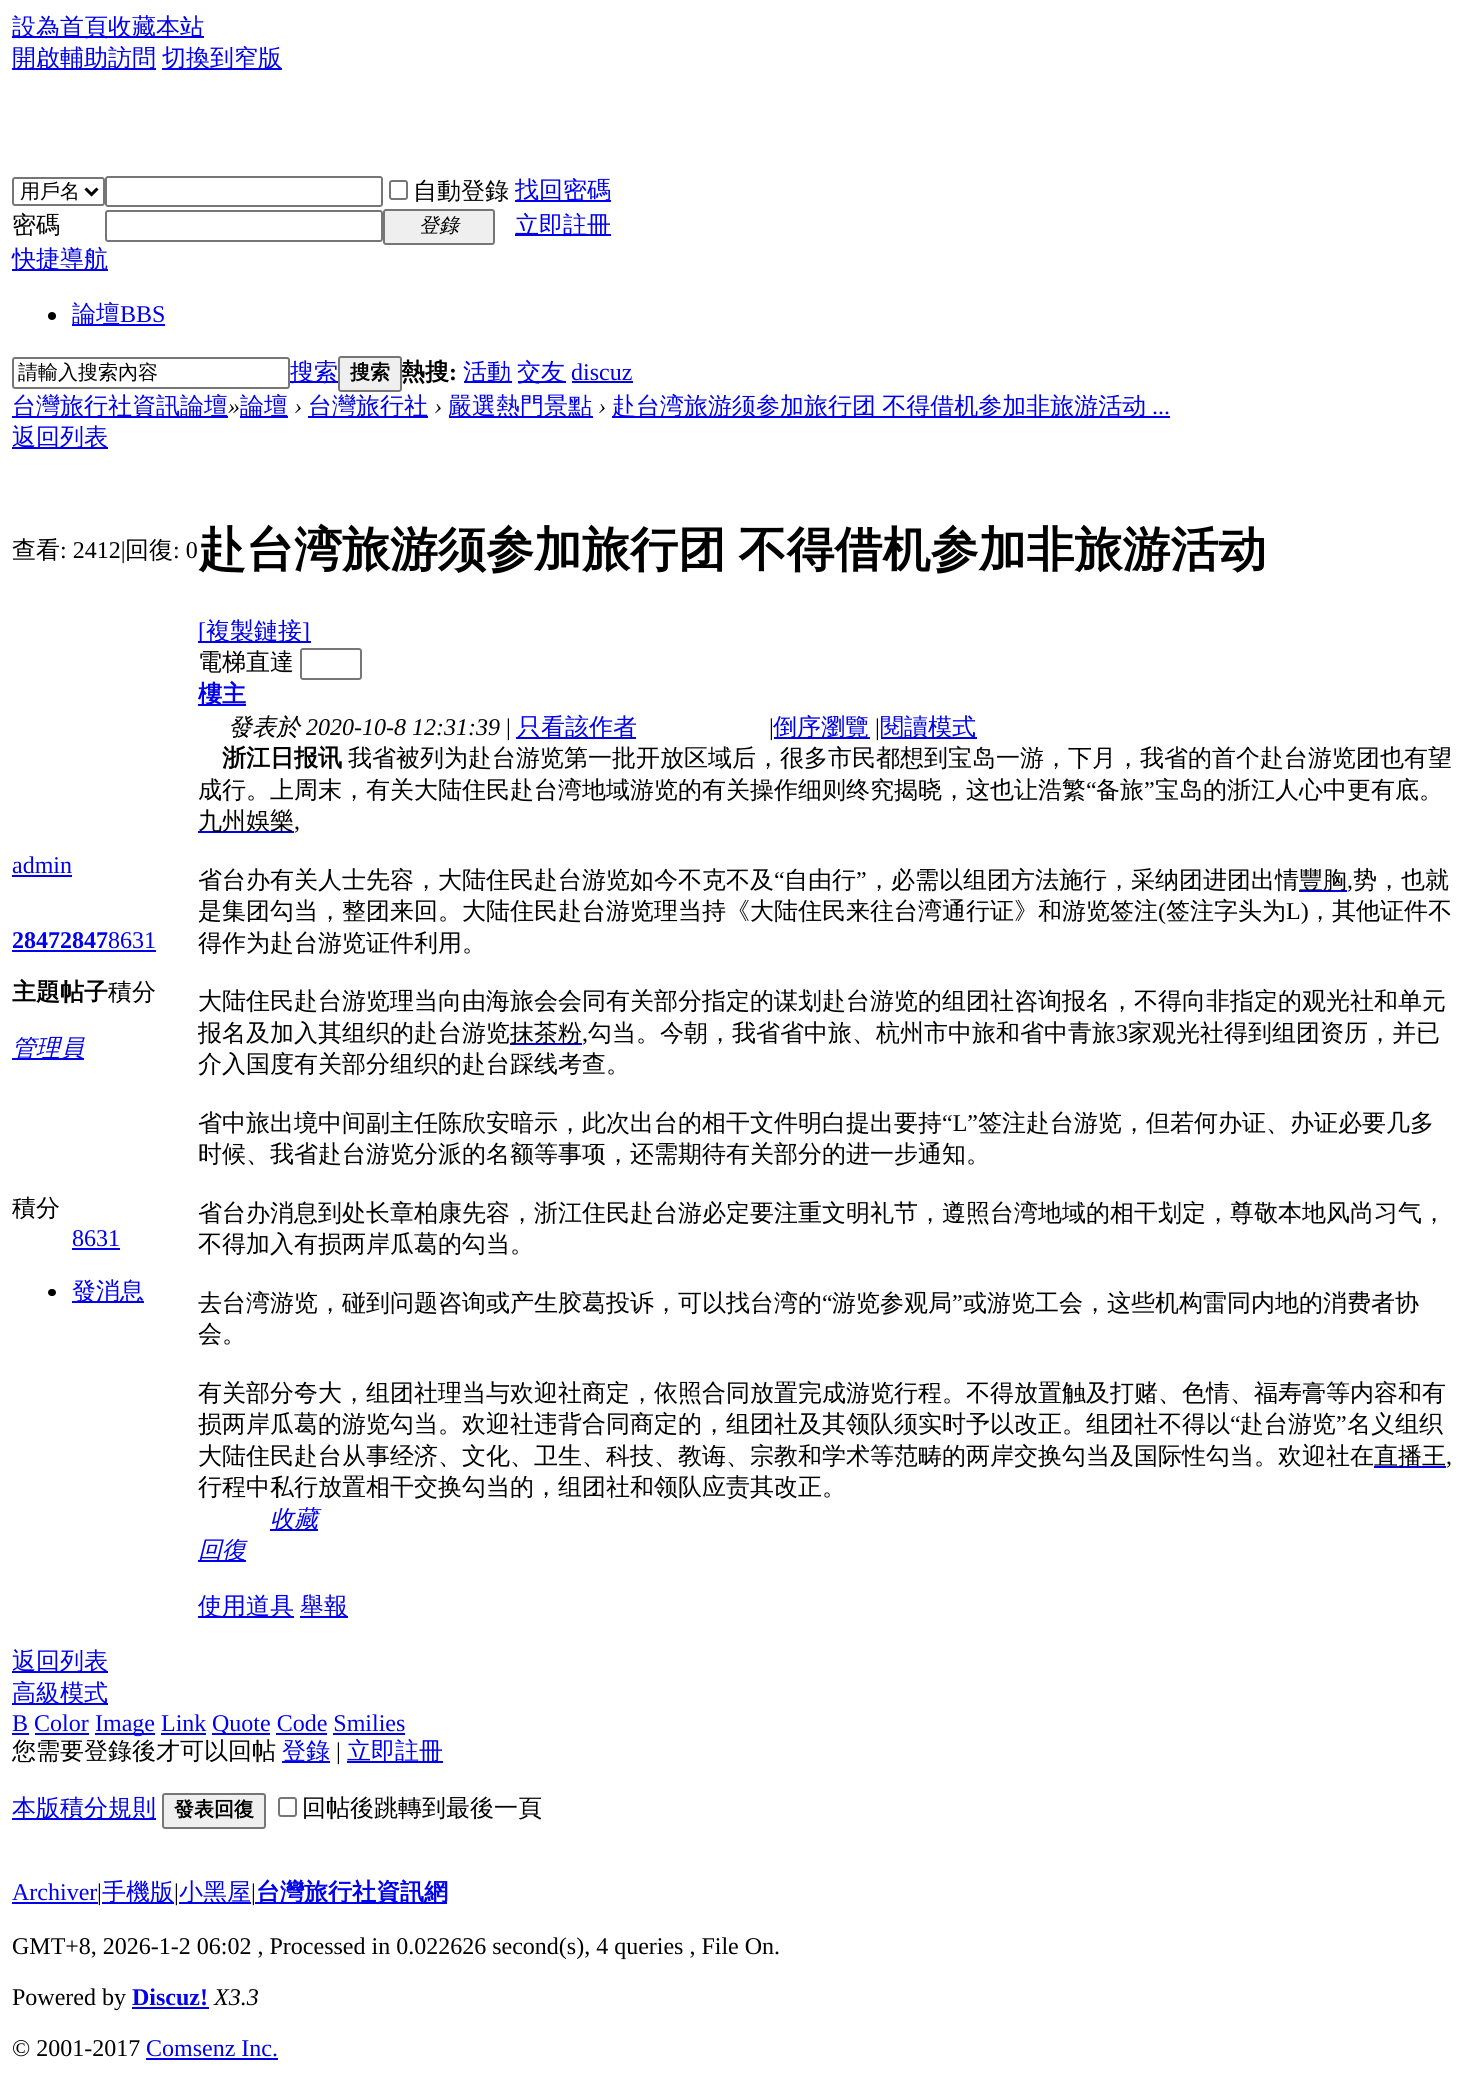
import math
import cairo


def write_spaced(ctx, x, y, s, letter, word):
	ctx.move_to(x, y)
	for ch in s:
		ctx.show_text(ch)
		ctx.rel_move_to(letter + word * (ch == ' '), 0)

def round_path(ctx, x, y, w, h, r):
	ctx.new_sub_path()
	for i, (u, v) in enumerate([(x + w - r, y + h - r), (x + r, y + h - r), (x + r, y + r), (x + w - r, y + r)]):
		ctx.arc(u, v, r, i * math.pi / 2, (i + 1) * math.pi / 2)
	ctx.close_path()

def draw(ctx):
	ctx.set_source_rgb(1, 1, 1)
	ctx.paint()
	ctx.set_source_rgb(0, 0, 0.933)
	ctx.rectangle(12, 36, 192, 2)
	ctx.fill()
	ctx.select_font_face('WenQuanYi Zen Hei Medium')
	ctx.set_font_size(24)
	ctx.move_to(12, 35)
	ctx.show_text('設為首頁收藏本站')
	ctx.rectangle(12, 68, 144, 2)
	ctx.fill()
	ctx.move_to(12, 66)
	ctx.show_text('開啟輔助訪問')
	ctx.rectangle(162, 68, 120, 2)
	ctx.fill()
	ctx.move_to(162, 66)
	ctx.show_text('切換到窄版')
	round_path(ctx, 13, 178, 91, 27, 2)
	ctx.set_source_rgb(0.463, 0.463, 0.463)
	ctx.stroke()
	ctx.new_path()
	ctx.move_to(85.5, 188.5)
	ctx.line_to(91.5, 194.5)
	ctx.line_to(97.5, 188.5)
	ctx.set_source_rgb(0, 0, 0)
	ctx.set_line_width(3)
	ctx.stroke()
	ctx.set_font_size(20)
	ctx.move_to(20, 198)
	ctx.show_text('用戶名')
	round_path(ctx, 106, 177, 276, 29, 2)
	ctx.set_source_rgb(0.463, 0.463, 0.463)
	ctx.set_line_width(2)
	ctx.stroke()
	round_path(ctx, 390, 181, 17, 18, 2)
	ctx.stroke()
	ctx.set_font_size(24)
	ctx.set_source_rgb(0, 0, 0)
	ctx.move_to(413, 199)
	ctx.show_text('自動登錄')
	ctx.set_source_rgb(0, 0, 0.933)
	ctx.rectangle(515, 200, 96, 2)
	ctx.fill()
	ctx.move_to(515, 198)
	ctx.show_text('找回密碼')
	ctx.set_source_rgb(0, 0, 0)
	ctx.move_to(12, 233)
	ctx.show_text('密碼')
	round_path(ctx, 106, 211, 276, 30, 2)
	ctx.set_source_rgb(0.463, 0.463, 0.463)
	ctx.stroke()
	ctx.set_source_rgb(0.937, 0.937, 0.937)
	round_path(ctx, 384, 210, 110, 34, 2)
	ctx.fill_preserve()
	ctx.set_source_rgb(0.463, 0.463, 0.463)
	ctx.stroke()
	ctx.select_font_face('WenQuanYi Zen Hei Medium', cairo.FONT_SLANT_ITALIC)
	ctx.set_font_size(20)
	ctx.set_source_rgb(0, 0, 0)
	ctx.move_to(419, 232)
	ctx.show_text('登錄')
	ctx.set_source_rgb(0, 0, 0.933)
	ctx.rectangle(515, 234, 96, 2)
	ctx.fill()
	ctx.select_font_face('WenQuanYi Zen Hei Medium')
	ctx.set_font_size(24)
	ctx.move_to(515, 233)
	ctx.show_text('立即註冊')
	ctx.rectangle(12, 269, 96, 2)
	ctx.fill()
	ctx.move_to(12, 267)
	ctx.show_text('快捷導航')
	ctx.set_source_rgb(0, 0, 0)
	ctx.new_path()
	ctx.arc(52, 316, 4, 0, 2 * math.pi)
	ctx.fill()
	ctx.set_source_rgb(0, 0, 0.933)
	ctx.rectangle(72, 324, 93, 2)
	ctx.fill()
	ctx.move_to(72, 322)
	ctx.show_text('論壇')
	ctx.select_font_face('Liberation Serif')
	ctx.move_to(120, 322)
	ctx.show_text('BBS')
	round_path(ctx, 13, 358, 276, 30, 2)
	ctx.set_source_rgb(0.463, 0.463, 0.463)
	ctx.stroke()
	ctx.select_font_face('WenQuanYi Zen Hei Medium')
	ctx.set_font_size(20)
	ctx.set_source_rgb(0, 0, 0)
	ctx.move_to(18, 379)
	ctx.show_text('請輸入搜索內容')
	ctx.set_source_rgb(0, 0, 0.933)
	ctx.rectangle(290, 381, 48, 2)
	ctx.fill()
	ctx.set_font_size(24)
	ctx.move_to(290, 380)
	ctx.show_text('搜索')
	ctx.set_source_rgb(0.937, 0.937, 0.937)
	round_path(ctx, 339, 357, 62, 34, 2)
	ctx.fill_preserve()
	ctx.set_source_rgb(0.463, 0.463, 0.463)
	ctx.stroke()
	ctx.select_font_face('WenQuanYi Zen Hei', cairo.FONT_SLANT_NORMAL, cairo.FONT_WEIGHT_BOLD)
	ctx.set_font_size(20)
	ctx.set_source_rgb(0, 0, 0)
	ctx.move_to(350, 379)
	ctx.show_text('搜索')
	ctx.set_font_size(24)
	ctx.move_to(401, 380)
	ctx.show_text('熱搜')
	ctx.select_font_face('Liberation Serif', cairo.FONT_SLANT_NORMAL, cairo.FONT_WEIGHT_BOLD)
	ctx.move_to(449, 380)
	ctx.show_text(':')
	ctx.set_source_rgb(0, 0, 0.933)
	ctx.rectangle(464, 381, 48, 2)
	ctx.fill()
	ctx.select_font_face('WenQuanYi Zen Hei Medium')
	ctx.move_to(463, 380)
	ctx.show_text('活動')
	ctx.rectangle(518, 381, 48, 2)
	ctx.fill()
	ctx.move_to(517, 380)
	ctx.show_text('交友')
	ctx.select_font_face('Liberation Serif')
	ctx.move_to(571, 380)
	ctx.show_text('discuz')
	ctx.rectangle(572, 381, 61, 2)
	ctx.fill()
	ctx.rectangle(12, 416, 216, 2)
	ctx.fill()
	ctx.select_font_face('WenQuanYi Zen Hei Medium')
	ctx.move_to(12, 414)
	ctx.show_text('台灣旅行社資訊論壇')
	ctx.select_font_face('Liberation Serif', cairo.FONT_SLANT_ITALIC)
	ctx.set_source_rgb(0, 0, 0)
	ctx.move_to(228, 414)
	ctx.show_text('»')
	ctx.set_source_rgb(0, 0, 0.933)
	ctx.rectangle(240, 416, 48, 2)
	ctx.fill()
	ctx.select_font_face('WenQuanYi Zen Hei Medium')
	ctx.move_to(240, 414)
	ctx.show_text('論壇')
	ctx.select_font_face('Liberation Serif', cairo.FONT_SLANT_ITALIC)
	ctx.set_source_rgb(0, 0, 0)
	ctx.move_to(294, 414)
	ctx.show_text('›')
	ctx.set_source_rgb(0, 0, 0.933)
	ctx.rectangle(308, 416, 120, 2)
	ctx.fill()
	ctx.select_font_face('WenQuanYi Zen Hei Medium')
	ctx.move_to(308, 414)
	ctx.show_text('台灣旅行社')
	ctx.select_font_face('Liberation Serif', cairo.FONT_SLANT_ITALIC)
	ctx.set_source_rgb(0, 0, 0)
	ctx.move_to(434, 414)
	ctx.show_text('›')
	ctx.set_source_rgb(0, 0, 0.933)
	ctx.rectangle(449, 416, 144, 2)
	ctx.fill()
	ctx.select_font_face('WenQuanYi Zen Hei Medium')
	ctx.move_to(448, 414)
	ctx.show_text('嚴選熱門景點')
	ctx.select_font_face('Liberation Serif', cairo.FONT_SLANT_ITALIC)
	ctx.set_source_rgb(0, 0, 0)
	ctx.move_to(598, 414)
	ctx.show_text('›')
	ctx.set_source_rgb(0, 0, 0.933)
	ctx.rectangle(612, 416, 558, 2)
	ctx.fill()
	ctx.select_font_face('WenQuanYi Zen Hei Medium')
	write_spaced(ctx, 612, 414, '赴台湾旅游须参加旅行团 不得借机参加非旅游活动', 0, -1)
	ctx.select_font_face('Liberation Serif')
	ctx.move_to(1152, 414)
	ctx.show_text('...')
	ctx.rectangle(12, 447, 96, 2)
	ctx.fill()
	ctx.select_font_face('WenQuanYi Zen Hei Medium')
	ctx.move_to(12, 445)
	ctx.show_text('返回列表')
	ctx.set_source_rgb(0, 0, 0)
	ctx.move_to(12, 558)
	ctx.show_text('查看')
	ctx.select_font_face('Liberation Serif')
	ctx.move_to(60, 558)
	ctx.show_text(': 2412|')
	ctx.select_font_face('WenQuanYi Zen Hei Medium')
	ctx.move_to(125, 558)
	ctx.show_text('回復')
	ctx.select_font_face('Liberation Serif')
	ctx.move_to(173, 558)
	ctx.show_text(': 0')
	ctx.select_font_face('WenQuanYi Zen Hei', cairo.FONT_SLANT_NORMAL, cairo.FONT_WEIGHT_BOLD)
	ctx.set_font_size(48)
	write_spaced(ctx, 198, 566, '赴台湾旅游须参加旅行团 不得借机参加非旅游活动', 0, -2)
	ctx.set_source_rgb(0, 0, 0.933)
	ctx.rectangle(198, 641, 113, 2)
	ctx.fill()
	ctx.select_font_face('Liberation Serif')
	ctx.set_font_size(24)
	ctx.move_to(198, 639)
	ctx.show_text('[')
	ctx.select_font_face('WenQuanYi Zen Hei Medium')
	ctx.move_to(206, 639)
	ctx.show_text('複製鏈接')
	ctx.select_font_face('Liberation Serif')
	ctx.move_to(302, 639)
	ctx.show_text(']')
	ctx.move_to(12, 873)
	ctx.show_text('admin')
	ctx.rectangle(12, 875, 60, 2)
	ctx.fill()
	ctx.select_font_face('Liberation Serif', cairo.FONT_SLANT_NORMAL, cairo.FONT_WEIGHT_BOLD)
	ctx.move_to(12, 948)
	ctx.show_text('28472847')
	ctx.rectangle(12, 950, 144, 2)
	ctx.fill()
	ctx.select_font_face('WenQuanYi Zen Hei', cairo.FONT_SLANT_NORMAL, cairo.FONT_WEIGHT_BOLD)
	ctx.set_source_rgb(0, 0, 0)
	ctx.move_to(12, 1000)
	ctx.show_text('主題帖子')
	ctx.select_font_face('Liberation Serif')
	ctx.set_source_rgb(0, 0, 0.933)
	ctx.move_to(108, 948)
	ctx.show_text('8631')
	ctx.select_font_face('WenQuanYi Zen Hei Medium')
	ctx.set_source_rgb(0, 0, 0)
	ctx.move_to(108, 1000)
	ctx.show_text('積分')
	ctx.set_source_rgb(0, 0, 0.933)
	ctx.rectangle(12, 1058, 72, 2)
	ctx.fill()
	ctx.select_font_face('WenQuanYi Zen Hei Medium', cairo.FONT_SLANT_ITALIC)
	ctx.move_to(12, 1056)
	ctx.show_text('管理員')
	ctx.select_font_face('WenQuanYi Zen Hei Medium')
	ctx.set_source_rgb(0, 0, 0)
	ctx.move_to(12, 1216)
	ctx.show_text('積分')
	ctx.select_font_face('Liberation Serif')
	ctx.set_source_rgb(0, 0, 0.933)
	ctx.move_to(72, 1246)
	ctx.show_text('8631')
	ctx.rectangle(72, 1248, 48, 2)
	ctx.fill()
	ctx.set_source_rgb(0, 0, 0)
	round_path(ctx, 48, 1289, 8, 7, 3.5)
	ctx.fill()
	ctx.set_source_rgb(0, 0, 0.933)
	ctx.rectangle(72, 1301, 72, 2)
	ctx.fill()
	ctx.select_font_face('WenQuanYi Zen Hei Medium')
	ctx.move_to(72, 1299)
	ctx.show_text('發消息')
	ctx.set_source_rgb(0, 0, 0)
	ctx.move_to(198, 670)
	ctx.show_text('電梯直達')
	round_path(ctx, 301, 649, 60, 30, 2)
	ctx.set_source_rgb(0.463, 0.463, 0.463)
	ctx.stroke()
	ctx.set_source_rgb(0, 0, 0.933)
	ctx.rectangle(198, 704, 48, 2)
	ctx.fill()
	ctx.select_font_face('WenQuanYi Zen Hei', cairo.FONT_SLANT_NORMAL, cairo.FONT_WEIGHT_BOLD)
	ctx.move_to(198, 702)
	ctx.show_text('樓主')
	ctx.select_font_face('WenQuanYi Zen Hei Medium', cairo.FONT_SLANT_ITALIC)
	ctx.set_source_rgb(0, 0, 0)
	ctx.move_to(228, 735)
	ctx.show_text('發表於')
	ctx.select_font_face('Liberation Serif', cairo.FONT_SLANT_ITALIC)
	ctx.move_to(306, 735)
	ctx.show_text('2020-10-8 12:31:39')
	ctx.select_font_face('Liberation Serif')
	ctx.move_to(506, 735)
	ctx.show_text('|')
	ctx.set_source_rgb(0, 0, 0.933)
	ctx.rectangle(516, 737, 120, 2)
	ctx.fill()
	ctx.select_font_face('WenQuanYi Zen Hei Medium')
	ctx.move_to(517, 735)
	ctx.show_text('只看該作者')
	ctx.select_font_face('Liberation Serif')
	ctx.set_source_rgb(0, 0, 0)
	ctx.move_to(769, 735)
	ctx.show_text('|')
	ctx.set_source_rgb(0, 0, 0.933)
	ctx.rectangle(774, 737, 96, 2)
	ctx.fill()
	ctx.select_font_face('WenQuanYi Zen Hei Medium')
	ctx.move_to(773, 735)
	ctx.show_text('倒序瀏覽')
	ctx.select_font_face('Liberation Serif')
	ctx.set_source_rgb(0, 0, 0)
	ctx.move_to(875, 735)
	ctx.show_text('|')
	ctx.set_source_rgb(0, 0, 0.933)
	ctx.rectangle(881, 737, 96, 2)
	ctx.fill()
	ctx.select_font_face('WenQuanYi Zen Hei Medium')
	ctx.move_to(880, 735)
	ctx.show_text('閱讀模式')
	ctx.select_font_face('WenQuanYi Zen Hei', cairo.FONT_SLANT_NORMAL, cairo.FONT_WEIGHT_BOLD)
	ctx.set_source_rgb(0, 0, 0)
	ctx.move_to(222, 766)
	ctx.show_text('浙江日报讯')
	ctx.select_font_face('WenQuanYi Zen Hei Medium')
	ctx.move_to(348, 766)
	ctx.show_text('我省被列为赴台游览第一批开放区域后，很多市民都想到宝岛一游，下月，我省的首个赴台游览团也有望')
	ctx.move_to(198, 798)
	ctx.show_text('成行。上周末，有关大陆住民赴台湾地域游览的有关操作细则终究揭晓，这也让浩繁')
	ctx.select_font_face('Liberation Serif')
	ctx.move_to(1086, 798)
	ctx.show_text('“')
	ctx.select_font_face('WenQuanYi Zen Hei Medium')
	ctx.move_to(1096, 798)
	ctx.show_text('备旅')
	ctx.select_font_face('Liberation Serif')
	ctx.move_to(1144, 798)
	ctx.show_text('”')
	ctx.select_font_face('WenQuanYi Zen Hei Medium')
	ctx.move_to(1155, 798)
	ctx.show_text('宝岛的浙江人心中更有底。')
	ctx.set_source_rgb(0, 0, 0.933)
	ctx.rectangle(198, 831, 96, 2)
	ctx.fill()
	ctx.set_source_rgb(0, 0, 0)
	ctx.move_to(198, 829)
	ctx.show_text('九州娛樂')
	ctx.select_font_face('Liberation Serif')
	ctx.move_to(294, 829)
	ctx.show_text(',')
	ctx.select_font_face('WenQuanYi Zen Hei Medium')
	ctx.move_to(198, 888)
	ctx.show_text('省台办有关人士先容，大陆住民赴台游览如今不克不及')
	ctx.select_font_face('Liberation Serif')
	ctx.move_to(774, 888)
	ctx.show_text('“')
	ctx.select_font_face('WenQuanYi Zen Hei Medium')
	ctx.move_to(784, 888)
	ctx.show_text('自由行')
	ctx.select_font_face('Liberation Serif')
	ctx.move_to(856, 888)
	ctx.show_text('”')
	ctx.select_font_face('WenQuanYi Zen Hei Medium')
	ctx.move_to(867, 888)
	ctx.show_text('，必需以组团方法施行，采纳团进团出情')
	ctx.set_source_rgb(0, 0, 0.933)
	ctx.rectangle(1299, 890, 48, 2)
	ctx.fill()
	ctx.set_source_rgb(0, 0, 0)
	ctx.move_to(1299, 888)
	ctx.show_text('豐胸')
	ctx.move_to(1353, 888)
	ctx.show_text('势，也就')
	ctx.select_font_face('Liberation Serif')
	ctx.move_to(1347, 888)
	ctx.show_text(',')
	ctx.select_font_face('WenQuanYi Zen Hei Medium')
	ctx.move_to(198, 919)
	ctx.show_text('是集团勾当，整团来回。大陆住民赴台游览理当持《大陆住民来往台湾通行证》和游览签注')
	ctx.select_font_face('Liberation Serif')
	ctx.move_to(1158, 919)
	ctx.show_text('(')
	ctx.select_font_face('WenQuanYi Zen Hei Medium')
	ctx.move_to(1166, 919)
	ctx.show_text('签注字头为')
	ctx.select_font_face('Liberation Serif')
	ctx.move_to(1286, 919)
	ctx.show_text('L)')
	ctx.select_font_face('WenQuanYi Zen Hei Medium')
	for x, y, s in [
		(1308, 919, '，其他证件不'),
		(198, 951, '得作为赴台游览证件利用。'),
		(198, 1009, '大陆住民赴台游览理当向由海旅会会同有关部分指定的谋划赴台游览的组团社咨询报名，不得向非指定的观光社和单元'),
		(198, 1041, '报名及加入其组织的赴台游览'),
	]:
		ctx.move_to(x, y)
		ctx.show_text(s)
	ctx.set_source_rgb(0, 0, 0.933)
	ctx.rectangle(510, 1043, 72, 2)
	ctx.fill()
	ctx.set_source_rgb(0, 0, 0)
	ctx.move_to(510, 1041)
	ctx.show_text('抹茶粉')
	ctx.select_font_face('Liberation Serif')
	ctx.move_to(582, 1041)
	ctx.show_text(',')
	ctx.select_font_face('WenQuanYi Zen Hei Medium')
	ctx.move_to(588, 1041)
	ctx.show_text('勾当。今朝，我省省中旅、杭州市中旅和省中青旅')
	ctx.select_font_face('Liberation Serif')
	ctx.move_to(1116, 1041)
	ctx.show_text('3')
	ctx.select_font_face('WenQuanYi Zen Hei Medium')
	for x, y, s in [
		(1128, 1041, '家观光社得到组团资历，并已'),
		(198, 1072, '介入国度有关部分组织的赴台踩线考查。'),
		(198, 1131, '省中旅出境中间副主任陈欣安暗示，此次出台的相干文件明白提出要持'),
	]:
		ctx.move_to(x, y)
		ctx.show_text(s)
	ctx.select_font_face('Liberation Serif')
	ctx.move_to(942, 1131)
	ctx.show_text('“L”')
	ctx.select_font_face('WenQuanYi Zen Hei Medium')
	for x, y, s in [
		(978, 1131, '签注赴台游览，但若何办证、办证必要几多'),
		(198, 1162, '时候、我省赴台游览分派的名额等事项，还需期待有关部分的进一步通知。'),
		(198, 1221, '省台办消息到处长章柏康先容，浙江住民赴台游必定要注重文明礼节，遵照台湾地域的相干划定，尊敬本地风尚习气，'),
		(198, 1252, '不得加入有损两岸瓜葛的勾当。'),
		(198, 1311, '去台湾游览，碰到问题咨询或产生胶葛投诉，可以找台湾的'),
	]:
		ctx.move_to(x, y)
		ctx.show_text(s)
	ctx.select_font_face('Liberation Serif')
	ctx.move_to(822, 1311)
	ctx.show_text('“')
	ctx.select_font_face('WenQuanYi Zen Hei Medium')
	ctx.move_to(832, 1311)
	ctx.show_text('游览参观局')
	ctx.select_font_face('Liberation Serif')
	ctx.move_to(952, 1311)
	ctx.show_text('”')
	ctx.select_font_face('WenQuanYi Zen Hei Medium')
	for x, y, s in [
		(963, 1311, '或游览工会，这些机构雷同内地的消费者协'),
		(198, 1342, '会。'),
		(198, 1401, '有关部分夸大，组团社理当与欢迎社商定，依照合同放置完成游览行程。不得放置触及打赌、色情、福寿膏等内容和有'),
		(198, 1432, '损两岸瓜葛的游览勾当。欢迎社违背合同商定的，组团社及其领队须实时予以改正。组团社不得以'),
	]:
		ctx.move_to(x, y)
		ctx.show_text(s)
	ctx.select_font_face('Liberation Serif')
	ctx.move_to(1230, 1432)
	ctx.show_text('“')
	ctx.select_font_face('WenQuanYi Zen Hei Medium')
	ctx.move_to(1240, 1432)
	ctx.show_text('赴台游览')
	ctx.select_font_face('Liberation Serif')
	ctx.move_to(1336, 1432)
	ctx.show_text('”')
	ctx.select_font_face('WenQuanYi Zen Hei Medium')
	ctx.move_to(1347, 1432)
	ctx.show_text('名义组织')
	ctx.move_to(198, 1464)
	ctx.show_text('大陆住民赴台从事经济、文化、卫生、科技、教诲、宗教和学术等范畴的两岸交换勾当及国际性勾当。欢迎社在')
	ctx.set_source_rgb(0, 0, 0.933)
	ctx.rectangle(1374, 1466, 72, 2)
	ctx.fill()
	ctx.set_source_rgb(0, 0, 0)
	ctx.move_to(1374, 1464)
	ctx.show_text('直播王')
	ctx.select_font_face('Liberation Serif')
	ctx.move_to(1446, 1464)
	ctx.show_text(',')
	ctx.select_font_face('WenQuanYi Zen Hei Medium')
	ctx.move_to(198, 1495)
	ctx.show_text('行程中私行放置相干交换勾当的，组团社和领队应责其改正。')
	ctx.set_source_rgb(0, 0, 0.933)
	ctx.rectangle(270, 1529, 48, 2)
	ctx.fill()
	ctx.select_font_face('WenQuanYi Zen Hei Medium', cairo.FONT_SLANT_ITALIC)
	ctx.move_to(270, 1527)
	ctx.show_text('收藏')
	ctx.rectangle(198, 1560, 48, 2)
	ctx.fill()
	ctx.move_to(198, 1558)
	ctx.show_text('回復')
	ctx.rectangle(198, 1616, 96, 2)
	ctx.fill()
	ctx.select_font_face('WenQuanYi Zen Hei Medium')
	ctx.move_to(198, 1614)
	ctx.show_text('使用道具')
	ctx.rectangle(300, 1616, 48, 2)
	ctx.fill()
	ctx.move_to(300, 1614)
	ctx.show_text('舉報')
	ctx.rectangle(12, 1671, 96, 2)
	ctx.fill()
	ctx.move_to(12, 1669)
	ctx.show_text('返回列表')
	ctx.rectangle(12, 1703, 96, 2)
	ctx.fill()
	ctx.move_to(12, 1701)
	ctx.show_text('高級模式')
	ctx.select_font_face('Liberation Serif')
	ctx.move_to(12, 1731)
	ctx.show_text('B Color')
	ctx.rectangle(12, 1733, 17, 2)
	ctx.fill()
	ctx.rectangle(95, 1733, 60, 2)
	ctx.fill()
	ctx.move_to(95, 1731)
	ctx.show_text('Image Link')
	ctx.rectangle(212, 1733, 58, 2)
	ctx.fill()
	ctx.move_to(212, 1731)
	ctx.show_text('Quote Code Smilies')
	ctx.rectangle(35, 1733, 54, 2)
	ctx.rectangle(161, 1733, 45, 2)
	ctx.rectangle(276, 1733, 51, 2)
	ctx.rectangle(333, 1733, 72, 2)
	ctx.fill()
	ctx.select_font_face('WenQuanYi Zen Hei Medium')
	ctx.set_source_rgb(0, 0, 0)
	ctx.move_to(12, 1759)
	ctx.show_text('您需要登錄後才可以回帖')
	ctx.set_source_rgb(0, 0, 0.933)
	ctx.rectangle(282, 1761, 48, 2)
	ctx.fill()
	ctx.move_to(282, 1759)
	ctx.show_text('登錄')
	ctx.select_font_face('Liberation Serif')
	ctx.set_source_rgb(0, 0, 0)
	ctx.move_to(336, 1759)
	ctx.show_text('|')
	ctx.set_source_rgb(0, 0, 0.933)
	ctx.rectangle(347, 1761, 96, 2)
	ctx.fill()
	ctx.select_font_face('WenQuanYi Zen Hei Medium')
	ctx.move_to(347, 1759)
	ctx.show_text('立即註冊')
	ctx.rectangle(12, 1818, 144, 2)
	ctx.fill()
	ctx.move_to(12, 1816)
	ctx.show_text('本版積分規則')
	ctx.set_source_rgb(0.937, 0.937, 0.937)
	round_path(ctx, 163, 1794, 102, 34, 2)
	ctx.fill_preserve()
	ctx.set_source_rgb(0.463, 0.463, 0.463)
	ctx.stroke()
	ctx.select_font_face('WenQuanYi Zen Hei', cairo.FONT_SLANT_NORMAL, cairo.FONT_WEIGHT_BOLD)
	ctx.set_font_size(20)
	ctx.set_source_rgb(0, 0, 0)
	ctx.move_to(174, 1816)
	ctx.show_text('發表回復')
	round_path(ctx, 279, 1798, 17, 18, 2)
	ctx.set_source_rgb(0.463, 0.463, 0.463)
	ctx.stroke()
	ctx.select_font_face('WenQuanYi Zen Hei Medium')
	ctx.set_font_size(24)
	ctx.set_source_rgb(0, 0, 0)
	ctx.move_to(302, 1816)
	ctx.show_text('回帖後跳轉到最後一頁')
	ctx.select_font_face('Liberation Serif')
	ctx.set_source_rgb(0, 0, 0.933)
	ctx.move_to(12, 1900)
	ctx.show_text('Archiver')
	ctx.rectangle(12, 1902, 86, 2)
	ctx.fill()
	ctx.set_source_rgb(0, 0, 0)
	ctx.move_to(97, 1900)
	ctx.show_text('|')
	ctx.set_source_rgb(0, 0, 0.933)
	ctx.rectangle(102, 1902, 72, 2)
	ctx.fill()
	ctx.select_font_face('WenQuanYi Zen Hei Medium')
	ctx.move_to(102, 1900)
	ctx.show_text('手機版')
	ctx.select_font_face('Liberation Serif')
	ctx.set_source_rgb(0, 0, 0)
	ctx.move_to(174, 1900)
	ctx.show_text('|')
	ctx.set_source_rgb(0, 0, 0.933)
	ctx.rectangle(179, 1902, 72, 2)
	ctx.fill()
	ctx.select_font_face('WenQuanYi Zen Hei Medium')
	ctx.move_to(179, 1900)
	ctx.show_text('小黑屋')
	ctx.select_font_face('Liberation Serif')
	ctx.set_source_rgb(0, 0, 0)
	ctx.move_to(251, 1900)
	ctx.show_text('|')
	ctx.set_source_rgb(0, 0, 0.933)
	ctx.rectangle(255, 1902, 192, 2)
	ctx.fill()
	ctx.select_font_face('WenQuanYi Zen Hei', cairo.FONT_SLANT_NORMAL, cairo.FONT_WEIGHT_BOLD)
	ctx.move_to(256, 1900)
	ctx.show_text('台灣旅行社資訊網')
	ctx.select_font_face('Liberation Serif')
	ctx.set_source_rgb(0, 0, 0)
	ctx.move_to(12, 1954)
	ctx.show_text('GMT+8, 2026-1-2 06:02 , Processed in 0.022626 second(s), 4 queries , File On.')
	ctx.move_to(12, 2005)
	ctx.show_text('Powered by')
	ctx.select_font_face('Liberation Serif', cairo.FONT_SLANT_NORMAL, cairo.FONT_WEIGHT_BOLD)
	ctx.set_source_rgb(0, 0, 0.933)
	ctx.move_to(132, 2005)
	ctx.show_text('Discuz!')
	ctx.rectangle(132, 2007, 77, 2)
	ctx.fill()
	ctx.select_font_face('Liberation Serif', cairo.FONT_SLANT_ITALIC)
	ctx.set_source_rgb(0, 0, 0)
	ctx.move_to(214, 2005)
	ctx.show_text('X3.3')
	ctx.select_font_face('Liberation Serif')
	ctx.move_to(12, 2056)
	ctx.show_text('© 2001-2017')
	ctx.set_source_rgb(0, 0, 0.933)
	ctx.move_to(146, 2056)
	ctx.show_text('Comsenz Inc.')
	ctx.rectangle(146, 2058, 132, 2)
	ctx.fill()


surface = cairo.ImageSurface(cairo.FORMAT_RGB24, 1467, 2082)
ctx = cairo.Context(surface)
options = cairo.FontOptions()
options.set_hint_metrics(cairo.HINT_METRICS_OFF)
options.set_hint_style(cairo.HINT_STYLE_NONE)
ctx.set_font_options(options)
ctx.set_miter_limit(4)
draw(ctx)
surface.write_to_png('image.png')
